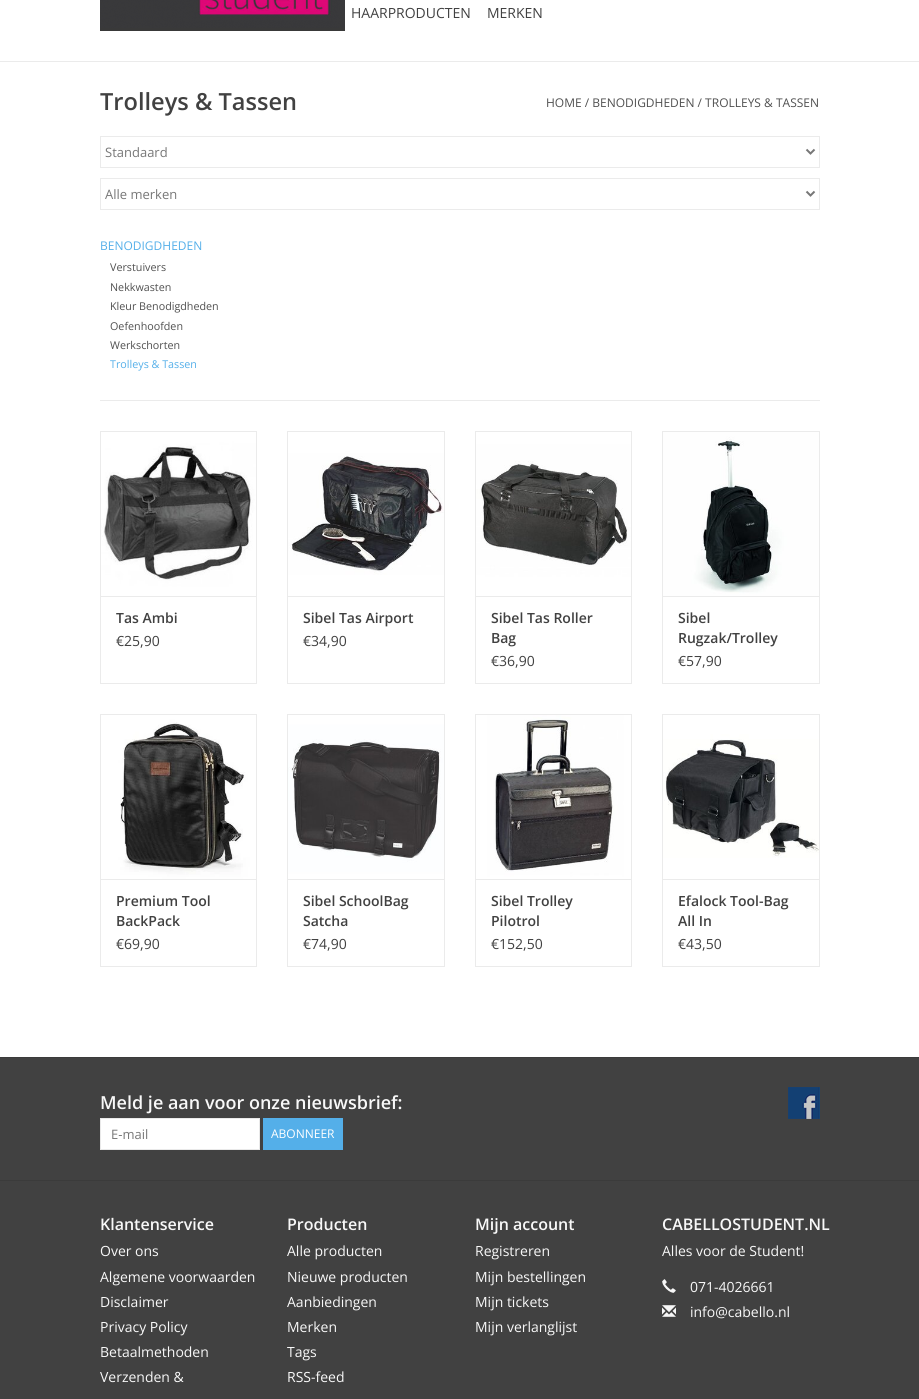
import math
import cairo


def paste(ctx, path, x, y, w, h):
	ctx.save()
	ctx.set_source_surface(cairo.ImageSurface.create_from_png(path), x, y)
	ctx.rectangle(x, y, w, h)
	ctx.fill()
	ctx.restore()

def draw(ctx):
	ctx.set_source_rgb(1, 1, 1)
	ctx.paint()
	ctx.set_source_rgb(0.918, 0.918, 0.918)
	ctx.rectangle(0, 61, 919, 1)
	ctx.fill()
	paste(ctx, 'media/1.png', 100, 0, 245, 31)
	ctx.select_font_face('Open Sans')
	ctx.set_font_size(14)
	ctx.set_source_rgb(0.255, 0.255, 0.255)
	ctx.move_to(351, 18)
	ctx.show_text('HAARPRODUCTEN')
	ctx.move_to(487, 18)
	ctx.show_text('MERKEN')
	ctx.select_font_face('Open Sans SemiBold')
	ctx.set_font_size(23.6)
	ctx.move_to(100, 110)
	ctx.show_text('Trolleys & Tassen')
	ctx.select_font_face('Open Sans')
	ctx.set_font_size(12)
	ctx.set_source_rgb(0.314, 0.314, 0.314)
	ctx.move_to(546, 107)
	ctx.show_text('HOME / BENODIGDHEDEN / TROLLEYS & TASSEN')
	ctx.rectangle(100.5, 136.5, 719, 31)
	ctx.set_source_rgb(0.918, 0.918, 0.918)
	ctx.set_line_width(1)
	ctx.stroke()
	ctx.new_path()
	ctx.move_to(806.5, 149.5)
	ctx.line_to(810.5, 153.5)
	ctx.line_to(814.5, 149.5)
	ctx.set_source_rgb(0.467, 0.467, 0.467)
	ctx.set_line_width(2)
	ctx.stroke()
	ctx.set_font_size(13)
	ctx.move_to(105, 157)
	ctx.show_text('Standaard')
	ctx.rectangle(100.5, 178.5, 719, 31)
	ctx.set_source_rgb(0.918, 0.918, 0.918)
	ctx.set_line_width(1)
	ctx.stroke()
	ctx.new_path()
	ctx.move_to(806.5, 191.5)
	ctx.line_to(810.5, 195.5)
	ctx.line_to(814.5, 191.5)
	ctx.set_source_rgb(0.467, 0.467, 0.467)
	ctx.set_line_width(2)
	ctx.stroke()
	ctx.move_to(105, 199)
	ctx.show_text('Alle merken')
	ctx.set_source_rgb(0.918, 0.918, 0.918)
	ctx.rectangle(100, 400, 720, 1)
	ctx.fill()
	ctx.set_font_size(12)
	ctx.set_source_rgb(0.329, 0.686, 0.914)
	ctx.move_to(100, 250)
	ctx.show_text('BENODIGDHEDEN')
	ctx.set_font_size(10.75)
	ctx.set_source_rgb(0.314, 0.314, 0.314)
	for x, y, s in [
		(110, 271, 'Verstuivers'),
		(110, 291, 'Nekkwasten'),
		(110, 310, 'Kleur Benodigdheden'),
		(110, 330, 'Oefenhoofden'),
		(110, 349, 'Werkschorten'),
	]:
		ctx.move_to(x, y)
		ctx.show_text(s)
	ctx.set_source_rgb(0.329, 0.686, 0.914)
	ctx.move_to(110, 368)
	ctx.show_text('Trolleys & Tassen')
	ctx.set_source_rgb(0.918, 0.918, 0.918)
	ctx.rectangle(100, 431, 157, 1)
	ctx.rectangle(256, 431, 1, 165)
	ctx.rectangle(100, 431, 1, 165)
	ctx.fill()
	paste(ctx, 'media/2.png', 101, 432, 155, 164)
	ctx.rectangle(100.5, 596.5, 156, 87)
	ctx.set_line_width(1)
	ctx.stroke()
	ctx.select_font_face('Open Sans SemiBold')
	ctx.set_font_size(14)
	ctx.set_source_rgb(0.255, 0.255, 0.255)
	ctx.move_to(116, 623)
	ctx.show_text('Tas Ambi')
	ctx.select_font_face('Open Sans')
	ctx.move_to(116, 646)
	ctx.show_text('€25,90')
	ctx.set_source_rgb(0.918, 0.918, 0.918)
	ctx.rectangle(287, 431, 158, 1)
	ctx.rectangle(444, 431, 1, 165)
	ctx.rectangle(287, 431, 1, 165)
	ctx.fill()
	paste(ctx, 'media/3.png', 288, 432, 156, 164)
	ctx.rectangle(287.5, 596.5, 157, 87)
	ctx.stroke()
	ctx.select_font_face('Open Sans SemiBold')
	ctx.set_source_rgb(0.255, 0.255, 0.255)
	ctx.move_to(303, 623)
	ctx.show_text('Sibel Tas Airport')
	ctx.select_font_face('Open Sans')
	ctx.move_to(303, 646)
	ctx.show_text('€34,90')
	ctx.set_source_rgb(0.918, 0.918, 0.918)
	ctx.rectangle(475, 431, 157, 1)
	ctx.rectangle(631, 431, 1, 165)
	ctx.rectangle(475, 431, 1, 165)
	ctx.fill()
	paste(ctx, 'media/4.png', 476, 432, 155, 164)
	ctx.rectangle(475.5, 596.5, 156, 87)
	ctx.stroke()
	ctx.select_font_face('Open Sans SemiBold')
	ctx.set_source_rgb(0.255, 0.255, 0.255)
	ctx.move_to(491, 623)
	ctx.show_text('Sibel Tas Roller')
	ctx.move_to(491, 643)
	ctx.show_text('Bag')
	ctx.select_font_face('Open Sans')
	ctx.move_to(491, 666)
	ctx.show_text('€36,90')
	ctx.set_source_rgb(0.918, 0.918, 0.918)
	ctx.rectangle(662, 431, 158, 1)
	ctx.rectangle(819, 431, 1, 165)
	ctx.rectangle(662, 431, 1, 165)
	ctx.fill()
	paste(ctx, 'media/5.png', 663, 432, 156, 164)
	ctx.rectangle(662.5, 596.5, 157, 87)
	ctx.stroke()
	ctx.select_font_face('Open Sans SemiBold')
	ctx.set_source_rgb(0.255, 0.255, 0.255)
	ctx.move_to(678, 623)
	ctx.show_text('Sibel')
	ctx.move_to(678, 643)
	ctx.show_text('Rugzak/Trolley')
	ctx.select_font_face('Open Sans')
	ctx.move_to(678, 666)
	ctx.show_text('€57,90')
	ctx.set_source_rgb(0.918, 0.918, 0.918)
	ctx.rectangle(100, 714, 157, 1)
	ctx.rectangle(256, 714, 1, 165)
	ctx.rectangle(100, 714, 1, 165)
	ctx.fill()
	paste(ctx, 'media/6.png', 101, 715, 155, 164)
	ctx.rectangle(100.5, 879.5, 156, 87)
	ctx.stroke()
	ctx.select_font_face('Open Sans SemiBold')
	ctx.set_source_rgb(0.255, 0.255, 0.255)
	ctx.move_to(116, 906)
	ctx.show_text('Premium Tool')
	ctx.move_to(116, 926)
	ctx.show_text('BackPack')
	ctx.select_font_face('Open Sans')
	ctx.move_to(116, 949)
	ctx.show_text('€69,90')
	ctx.set_source_rgb(0.918, 0.918, 0.918)
	ctx.rectangle(287, 714, 158, 1)
	ctx.rectangle(444, 714, 1, 165)
	ctx.rectangle(287, 714, 1, 165)
	ctx.fill()
	paste(ctx, 'media/7.png', 288, 715, 156, 164)
	ctx.rectangle(287.5, 879.5, 157, 87)
	ctx.stroke()
	ctx.select_font_face('Open Sans SemiBold')
	ctx.set_source_rgb(0.255, 0.255, 0.255)
	ctx.move_to(303, 906)
	ctx.show_text('Sibel SchoolBag')
	ctx.move_to(303, 926)
	ctx.show_text('Satcha')
	ctx.select_font_face('Open Sans')
	ctx.move_to(303, 949)
	ctx.show_text('€74,90')
	ctx.set_source_rgb(0.918, 0.918, 0.918)
	ctx.rectangle(475, 714, 157, 1)
	ctx.rectangle(631, 714, 1, 165)
	ctx.rectangle(475, 714, 1, 165)
	ctx.fill()
	paste(ctx, 'media/8.png', 476, 715, 155, 164)
	ctx.rectangle(475.5, 879.5, 156, 87)
	ctx.stroke()
	ctx.select_font_face('Open Sans SemiBold')
	ctx.set_source_rgb(0.255, 0.255, 0.255)
	ctx.move_to(491, 906)
	ctx.show_text('Sibel Trolley')
	ctx.move_to(491, 926)
	ctx.show_text('Pilotrol')
	ctx.select_font_face('Open Sans')
	ctx.move_to(491, 949)
	ctx.show_text('€152,50')
	ctx.set_source_rgb(0.918, 0.918, 0.918)
	ctx.rectangle(662, 714, 158, 1)
	ctx.rectangle(819, 714, 1, 165)
	ctx.rectangle(662, 714, 1, 165)
	ctx.fill()
	paste(ctx, 'media/9.png', 663, 715, 156, 164)
	ctx.rectangle(662.5, 879.5, 157, 87)
	ctx.stroke()
	ctx.select_font_face('Open Sans SemiBold')
	ctx.set_source_rgb(0.255, 0.255, 0.255)
	ctx.move_to(678, 906)
	ctx.show_text('Efalock Tool-Bag')
	ctx.move_to(678, 926)
	ctx.show_text('All In')
	ctx.select_font_face('Open Sans')
	ctx.move_to(678, 949)
	ctx.show_text('€43,50')
	ctx.rectangle(0, 1058, 919, 341)
	ctx.fill()
	ctx.set_source_rgb(0.231, 0.231, 0.231)
	ctx.rectangle(0, 1057, 919, 1)
	ctx.fill()
	ctx.select_font_face('Open Sans SemiBold')
	ctx.set_font_size(18)
	ctx.set_source_rgb(0.969, 0.969, 0.969)
	ctx.move_to(100, 1109)
	ctx.show_text('Meld je aan voor onze nieuwsbrief:')
	ctx.set_source_rgb(1, 1, 1)
	ctx.rectangle(100.5, 1118.5, 159, 31)
	ctx.fill_preserve()
	ctx.set_source_rgb(0.914, 0.914, 0.914)
	ctx.stroke()
	ctx.select_font_face('Open Sans')
	ctx.set_font_size(13)
	ctx.set_source_rgb(0.467, 0.467, 0.467)
	ctx.move_to(111, 1139)
	ctx.show_text('E-mail')
	ctx.set_source_rgb(0.329, 0.686, 0.914)
	ctx.rectangle(263, 1118, 80, 32)
	ctx.fill()
	ctx.set_font_size(12)
	ctx.set_source_rgb(1, 1, 1)
	ctx.move_to(271, 1138)
	ctx.show_text('ABONNEER')
	paste(ctx, 'media/10.png', 788, 1087, 32, 32)
	ctx.set_source_rgb(0.231, 0.231, 0.231)
	ctx.rectangle(0, 1180, 919, 1)
	ctx.fill()
	ctx.select_font_face('Open Sans SemiBold')
	ctx.set_font_size(16)
	ctx.set_source_rgb(0.969, 0.969, 0.969)
	ctx.move_to(100, 1230)
	ctx.show_text('Klantenservice')
	ctx.select_font_face('Open Sans')
	ctx.set_font_size(14)
	for x, y, s in [
		(100, 1256, 'Over ons'),
		(100, 1282, 'Algemene voorwaarden'),
		(100, 1307, 'Disclaimer'),
		(100, 1332, 'Privacy Policy'),
		(100, 1357, 'Betaalmethoden'),
		(100, 1382, 'Verzenden &'),
	]:
		ctx.move_to(x, y)
		ctx.show_text(s)
	ctx.select_font_face('Open Sans SemiBold')
	ctx.set_font_size(16)
	ctx.move_to(287, 1230)
	ctx.show_text('Producten')
	ctx.select_font_face('Open Sans')
	ctx.set_font_size(14)
	for x, y, s in [
		(287, 1256, 'Alle producten'),
		(287, 1282, 'Nieuwe producten'),
		(287, 1307, 'Aanbiedingen'),
		(287, 1332, 'Merken'),
		(287, 1357, 'Tags'),
		(287, 1382, 'RSS-feed'),
	]:
		ctx.move_to(x, y)
		ctx.show_text(s)
	ctx.select_font_face('Open Sans SemiBold')
	ctx.set_font_size(16)
	ctx.move_to(475, 1230)
	ctx.show_text('Mijn account')
	ctx.select_font_face('Open Sans')
	ctx.set_font_size(14)
	for x, y, s in [
		(475, 1256, 'Registreren'),
		(475, 1282, 'Mijn bestellingen'),
		(475, 1307, 'Mijn tickets'),
		(475, 1332, 'Mijn verlanglijst'),
	]:
		ctx.move_to(x, y)
		ctx.show_text(s)
	ctx.select_font_face('Open Sans SemiBold')
	ctx.set_font_size(16)
	ctx.move_to(662, 1230)
	ctx.show_text('CABELLOSTUDENT.NL')
	ctx.select_font_face('Open Sans')
	ctx.set_font_size(14)
	ctx.move_to(662, 1256)
	ctx.show_text('Alles voor de Student!')
	paste(ctx, 'media/11.png', 662, 1279, 14, 14)
	ctx.move_to(690, 1292)
	ctx.show_text('071-4026661')
	paste(ctx, 'media/12.png', 662, 1305, 14, 12)
	ctx.move_to(690, 1317)
	ctx.show_text('info@cabello.nl')


surface = cairo.ImageSurface(cairo.FORMAT_RGB24, 919, 1399)
ctx = cairo.Context(surface)
options = cairo.FontOptions()
options.set_hint_metrics(cairo.HINT_METRICS_OFF)
options.set_hint_style(cairo.HINT_STYLE_NONE)
ctx.set_font_options(options)
ctx.set_miter_limit(4)
draw(ctx)
surface.write_to_png('image.png')
